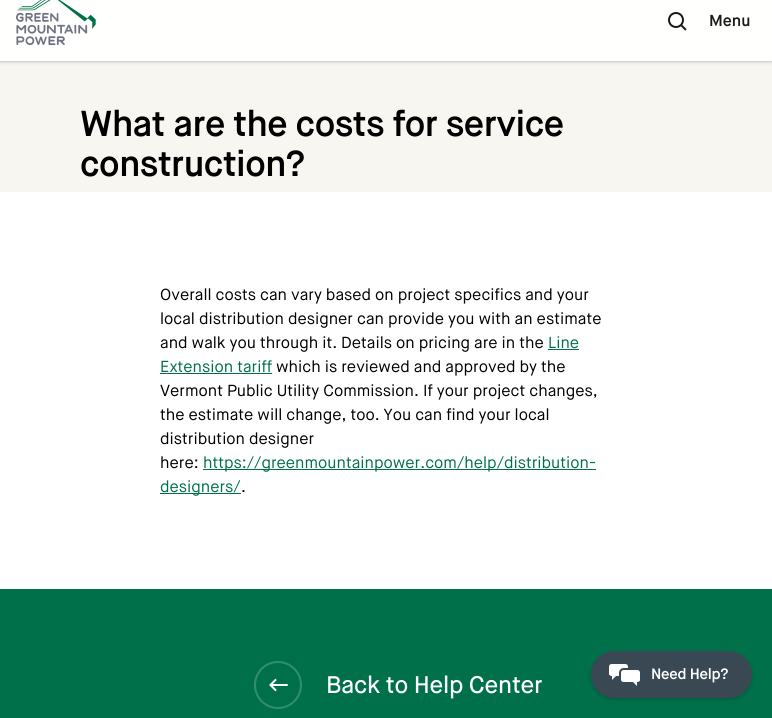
import math
import cairo


def write_spaced(ctx, x, y, s, letter, word):
	ctx.move_to(x, y)
	for ch in s:
		ctx.show_text(ch)
		ctx.rel_move_to(letter + word * (ch == ' '), 0)

def round_path(ctx, x, y, w, h, r):
	ctx.new_sub_path()
	for i, (u, v) in enumerate([(x + w - r, y + h - r), (x + r, y + h - r), (x + r, y + r), (x + w - r, y + r)]):
		ctx.arc(u, v, r, i * math.pi / 2, (i + 1) * math.pi / 2)
	ctx.close_path()

def blur_box(ctx, x, y, w, h, r, blur, alpha):
	ctx.push_group_with_content(cairo.CONTENT_ALPHA)
	ctx.set_operator(cairo.OPERATOR_SOURCE)
	for i in range(15, -16, -2):
		e = blur * i / 6
		if min(w, h) + 2 * e > 0:
			ctx.set_source_rgba(0, 0, 0, alpha * math.erfc((i - 1) / 8.5) / 2)
			round_path(ctx, x - e, y - e, w + 2 * e, h + 2 * e, max(0, min(r + e + blur * .6, min(w, h) / 2 + e)))
			ctx.fill()
	ctx.mask(ctx.pop_group())

def paste(ctx, path, x, y, w, h):
	ctx.save()
	ctx.set_source_surface(cairo.ImageSurface.create_from_png(path), x, y)
	ctx.rectangle(x, y, w, h)
	ctx.fill()
	ctx.restore()

def draw(ctx):
	ctx.set_source_rgb(1, 1, 1)
	ctx.paint()
	ctx.set_source_rgb(0.969, 0.961, 0.945)
	ctx.rectangle(0, 61, 772, 131)
	ctx.fill()
	ctx.set_source_rgb(0, 0, 0)
	blur_box(ctx, 0, -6, 772, 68, 0, 2, 0.16)
	ctx.set_source_rgba(0, 0, 0, 0.06)
	ctx.rectangle(0, 61, 772, 1)
	ctx.fill()
	ctx.set_source_rgb(1, 1, 0.996)
	ctx.rectangle(0, 0, 772, 61)
	ctx.fill()
	paste(ctx, 'media/1.png', 16, 0, 80, 46)
	paste(ctx, 'media/2.png', 668, 12, 19, 19)
	ctx.select_font_face('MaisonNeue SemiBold')
	ctx.set_font_size(16)
	ctx.set_source_rgb(0.102, 0.102, 0.102)
	ctx.move_to(709, 26)
	ctx.show_text('Menu')
	ctx.set_font_size(36)
	ctx.set_source_rgb(0, 0, 0)
	write_spaced(ctx, 80, 136, 'What are the costs for service', -0.5, 0)
	write_spaced(ctx, 80, 176, 'construction?', -0.5, 0)
	ctx.select_font_face('MaisonNeue')
	ctx.set_font_size(16)
	for x, y, s in [
		(160, 300, 'Overall costs can vary based on project specifics and your'),
		(160, 324, 'local distribution designer can provide you with an estimate'),
		(160, 348, 'and walk you through it. Details on pricing are in the'),
	]:
		ctx.move_to(x, y)
		ctx.show_text(s)
	ctx.set_source_rgb(0, 0.439, 0.29)
	ctx.move_to(548, 348)
	ctx.show_text('Line')
	ctx.rectangle(548, 349, 31, 1)
	ctx.fill()
	ctx.move_to(160, 372)
	ctx.show_text('Extension tariff')
	ctx.rectangle(160, 373, 112, 1)
	ctx.fill()
	ctx.set_source_rgb(0, 0, 0)
	for x, y, s in [
		(276, 372, 'which is reviewed and approved by the'),
		(160, 396, 'Vermont Public Utility Commission. If your project changes,'),
		(160, 420, 'the estimate will change, too. You can find your local'),
		(160, 444, 'distribution designer'),
		(160, 468, 'here:'),
	]:
		ctx.move_to(x, y)
		ctx.show_text(s)
	ctx.set_source_rgb(0, 0.439, 0.29)
	ctx.rectangle(203, 469, 393, 1)
	ctx.fill()
	ctx.move_to(203, 468)
	ctx.show_text('https://greenmountainpower.com/help/distribution-')
	ctx.rectangle(160, 493, 81, 1)
	ctx.fill()
	ctx.move_to(160, 492)
	ctx.show_text('designers/')
	ctx.set_source_rgb(0, 0, 0)
	ctx.move_to(241, 492)
	ctx.show_text('.')
	ctx.set_source_rgb(0, 0.439, 0.29)
	ctx.rectangle(0, 589, 772, 129)
	ctx.fill()
	paste(ctx, 'media/3.png', 269, 678, 19, 14)
	ctx.arc(278, 685, 23, 0, 2 * math.pi)
	ctx.set_source_rgb(0.2, 0.553, 0.431)
	ctx.stroke()
	ctx.select_font_face('MaisonNeue Medium')
	ctx.set_font_size(24)
	ctx.set_source_rgb(1, 1, 1)
	write_spaced(ctx, 326, 693, 'Back to Help Center', -0.25, 0)
	ctx.set_source_rgb(0, 0, 0)
	blur_box(ctx, 591, 653, 161, 47, 23.5, 2, 0.16)
	ctx.set_source_rgb(0.224, 0.282, 0.322)
	round_path(ctx, 591, 651, 161, 47, 23.5)
	ctx.fill()
	paste(ctx, 'media/4.png', 609, 664, 31, 22)
	ctx.select_font_face('MaisonNeue SemiBold')
	ctx.set_font_size(15)
	ctx.set_source_rgb(1, 1, 1)
	write_spaced(ctx, 651, 679, 'Need Help?', -0.25, 0)


surface = cairo.ImageSurface(cairo.FORMAT_RGB24, 772, 718)
ctx = cairo.Context(surface)
options = cairo.FontOptions()
options.set_hint_metrics(cairo.HINT_METRICS_OFF)
options.set_hint_style(cairo.HINT_STYLE_NONE)
ctx.set_font_options(options)
ctx.set_miter_limit(4)
draw(ctx)
surface.write_to_png('image.png')
